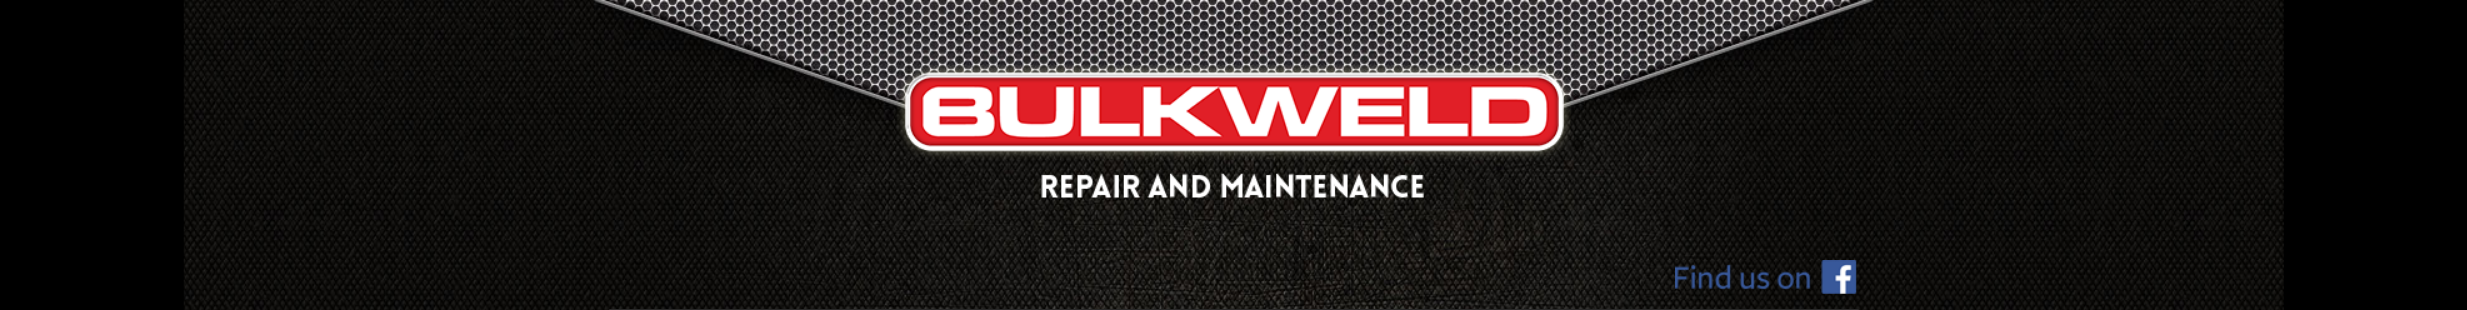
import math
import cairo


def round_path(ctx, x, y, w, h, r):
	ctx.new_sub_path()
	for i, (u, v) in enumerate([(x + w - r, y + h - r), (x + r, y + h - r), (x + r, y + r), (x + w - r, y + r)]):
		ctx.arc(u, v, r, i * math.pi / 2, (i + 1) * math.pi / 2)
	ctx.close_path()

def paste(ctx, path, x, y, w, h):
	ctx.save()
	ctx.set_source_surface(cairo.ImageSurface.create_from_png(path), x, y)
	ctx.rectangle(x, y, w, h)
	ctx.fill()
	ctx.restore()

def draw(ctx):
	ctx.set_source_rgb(0, 0, 0)
	ctx.paint()
	paste(ctx, 'media/1.png', 183, 0, 2101, 310)
	paste(ctx, 'media/2.png', 897, 65, 674, 133)
	paste(ctx, 'media/3.png', 1675, 260, 182, 34)
	round_path(ctx, 609.5, 309.5, 1249, 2, 0.5)
	ctx.set_source_rgb(0.161, 0.161, 0.161)
	ctx.set_line_width(1)
	ctx.stroke()


surface = cairo.ImageSurface(cairo.FORMAT_RGB24, 2467, 310)
ctx = cairo.Context(surface)
options = cairo.FontOptions()
options.set_hint_metrics(cairo.HINT_METRICS_OFF)
options.set_hint_style(cairo.HINT_STYLE_NONE)
ctx.set_font_options(options)
ctx.set_miter_limit(4)
draw(ctx)
surface.write_to_png('image.png')
